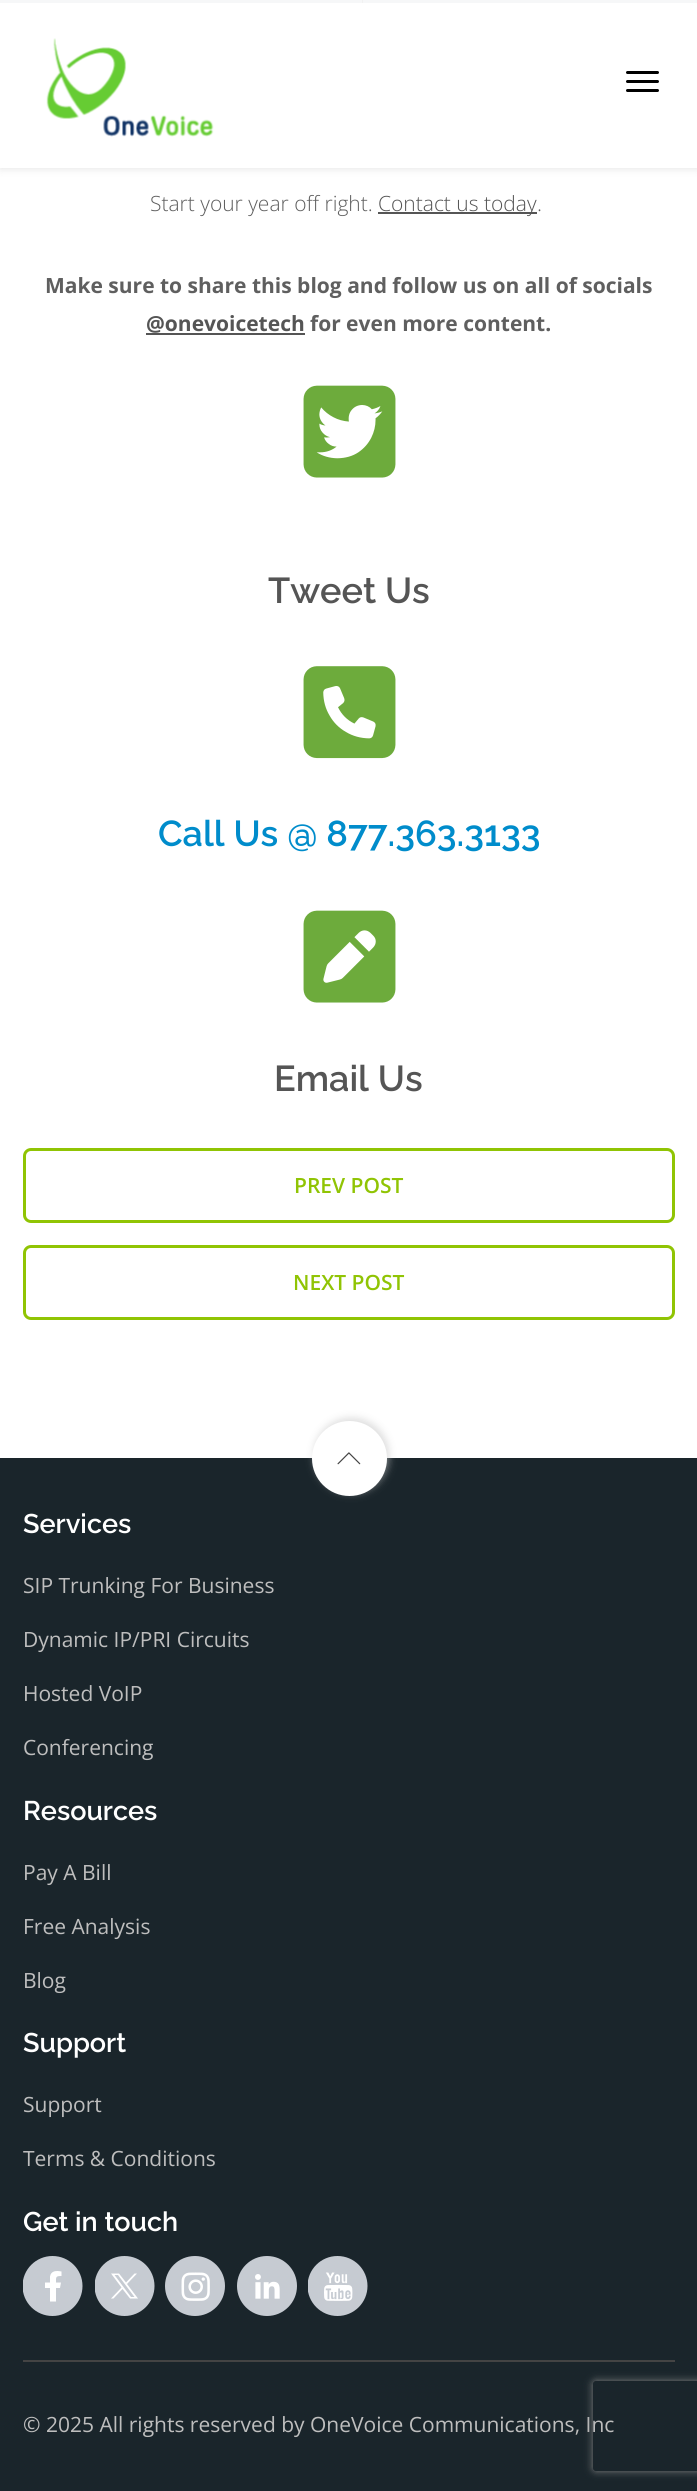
import math
import cairo


def round_path(ctx, x, y, w, h, r):
	ctx.new_sub_path()
	for i, (u, v) in enumerate([(x + w - r, y + h - r), (x + r, y + h - r), (x + r, y + r), (x + w - r, y + r)]):
		ctx.arc(u, v, r, i * math.pi / 2, (i + 1) * math.pi / 2)
	ctx.close_path()

def blur_box(ctx, x, y, w, h, r, blur, alpha):
	ctx.push_group_with_content(cairo.CONTENT_ALPHA)
	ctx.set_operator(cairo.OPERATOR_SOURCE)
	for i in range(15, -16, -2):
		e = blur * i / 6
		if min(w, h) + 2 * e > 0:
			ctx.set_source_rgba(0, 0, 0, alpha * math.erfc((i - 1) / 8.5) / 2)
			round_path(ctx, x - e, y - e, w + 2 * e, h + 2 * e, max(0, min(r + e + blur * .6, min(w, h) / 2 + e)))
			ctx.fill()
	ctx.mask(ctx.pop_group())

def paste(ctx, path, x, y, w, h):
	ctx.save()
	ctx.set_source_surface(cairo.ImageSurface.create_from_png(path), x, y)
	ctx.rectangle(x, y, w, h)
	ctx.fill()
	ctx.restore()

def draw(ctx):
	ctx.set_source_rgb(1, 1, 1)
	ctx.paint()
	ctx.set_source_rgb(0, 0, 0)
	blur_box(ctx, 0, -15, 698, 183, 0, 5, 0.12)
	ctx.set_source_rgb(1, 1, 1)
	ctx.rectangle(0, 3, 697, 165)
	ctx.fill()
	ctx.set_source_rgb(0.961, 0.965, 0.969)
	ctx.rectangle(0, 0, 697, 3)
	ctx.fill()
	ctx.set_source_rgb(0.945, 0.945, 0.945)
	ctx.rectangle(362, 0, 1, 3)
	ctx.fill()
	paste(ctx, 'media/1.png', 46, 38, 168, 99)
	ctx.set_source_rgb(0, 0, 0)
	round_path(ctx, 626, 71, 33, 3, 1.5)
	ctx.fill()
	round_path(ctx, 626, 80, 33, 3, 1.5)
	ctx.fill()
	round_path(ctx, 626, 89, 33, 3, 1.5)
	ctx.fill()
	ctx.select_font_face('Open Sans Light')
	ctx.set_font_size(21)
	ctx.set_source_rgb(0.373, 0.373, 0.373)
	ctx.move_to(150, 211)
	ctx.show_text('Start your year off right.')
	ctx.set_source_rgb(0.333, 0.333, 0.333)
	ctx.rectangle(378, 212, 159, 2)
	ctx.fill()
	ctx.move_to(378, 211)
	ctx.show_text('Contact us today')
	ctx.set_source_rgb(0.373, 0.373, 0.373)
	ctx.move_to(537, 211)
	ctx.show_text('.')
	ctx.select_font_face('Open Sans', cairo.FONT_SLANT_NORMAL, cairo.FONT_WEIGHT_BOLD)
	ctx.move_to(45, 293)
	ctx.show_text('Make sure to share this blog and follow us on all of socials')
	ctx.set_source_rgb(0.333, 0.333, 0.333)
	ctx.move_to(146, 331)
	ctx.show_text('@onevoicetech')
	ctx.rectangle(146, 333, 159, 2)
	ctx.fill()
	ctx.set_source_rgb(0.373, 0.373, 0.373)
	ctx.move_to(310, 331)
	ctx.show_text('for even more content.')
	paste(ctx, 'media/2.png', 303, 385, 93, 93)
	ctx.select_font_face('Raleway SemiBold')
	ctx.set_font_size(36)
	ctx.set_source_rgb(0.333, 0.333, 0.333)
	ctx.move_to(268, 603)
	ctx.show_text('Tweet Us')
	paste(ctx, 'media/3.png', 303, 666, 93, 93)
	ctx.set_source_rgb(0, 0.549, 0.796)
	ctx.move_to(158, 846)
	ctx.show_text('Call Us @ 877.363.3133')
	paste(ctx, 'media/4.png', 303, 910, 93, 93)
	ctx.set_source_rgb(0.333, 0.333, 0.333)
	ctx.move_to(274, 1091)
	ctx.show_text('Email Us')
	round_path(ctx, 24.5, 1149.5, 649, 72, 6.5)
	ctx.set_source_rgb(0.565, 0.769, 0.016)
	ctx.set_line_width(3)
	ctx.stroke()
	ctx.select_font_face('Open Sans SemiBold')
	ctx.set_font_size(21)
	ctx.move_to(294, 1193)
	ctx.show_text('PREV POST')
	round_path(ctx, 24.5, 1246.5, 649, 72, 6.5)
	ctx.stroke()
	ctx.move_to(293, 1290)
	ctx.show_text('NEXT POST')
	ctx.set_source_rgb(0.102, 0.145, 0.169)
	ctx.rectangle(0, 1458, 697, 1033)
	ctx.fill()
	ctx.set_source_rgb(0.776, 0.776, 0.776)
	blur_box(ctx, 314, 1418, 75, 75, 37.5, 4, 0.59)
	ctx.set_source_rgb(1, 1, 1)
	ctx.arc(349.5, 1458.5, 37.5, 0, 2 * math.pi)
	ctx.fill()
	paste(ctx, 'media/5.png', 337, 1452, 24, 13)
	ctx.select_font_face('Raleway SemiBold')
	ctx.set_font_size(27)
	ctx.move_to(23, 1533)
	ctx.show_text('Services')
	ctx.select_font_face('Open Sans')
	ctx.set_font_size(21)
	ctx.set_source_rgb(0.745, 0.745, 0.745)
	for x, y, s in [
		(23, 1593, 'SIP Trunking For Business'),
		(23, 1647, 'Dynamic IP/PRI Circuits'),
		(23, 1701, 'Hosted VoIP'),
		(23, 1755, 'Conferencing'),
	]:
		ctx.move_to(x, y)
		ctx.show_text(s)
	ctx.select_font_face('Raleway SemiBold')
	ctx.set_font_size(27)
	ctx.set_source_rgb(1, 1, 1)
	ctx.move_to(23, 1820)
	ctx.show_text('Resources')
	ctx.select_font_face('Open Sans')
	ctx.set_font_size(21)
	ctx.set_source_rgb(0.745, 0.745, 0.745)
	for x, y, s in [
		(23, 1880, 'Pay A Bill'),
		(23, 1934, 'Free Analysis'),
		(23, 1988, 'Blog'),
	]:
		ctx.move_to(x, y)
		ctx.show_text(s)
	ctx.select_font_face('Raleway SemiBold')
	ctx.set_font_size(27)
	ctx.set_source_rgb(1, 1, 1)
	ctx.move_to(23, 2052)
	ctx.show_text('Support')
	ctx.select_font_face('Open Sans')
	ctx.set_font_size(21)
	ctx.set_source_rgb(0.745, 0.745, 0.745)
	ctx.move_to(23, 2112)
	ctx.show_text('Support')
	ctx.move_to(23, 2166)
	ctx.show_text('Terms & Conditions')
	ctx.select_font_face('Raleway SemiBold')
	ctx.set_font_size(27)
	ctx.set_source_rgb(1, 1, 1)
	ctx.move_to(23, 2231)
	ctx.show_text('Get in touch')
	ctx.save()
	ctx.rectangle(23, 2256, 60, 60)
	ctx.clip()
	ctx.set_source_rgb(0.776, 0.796, 0.824)
	ctx.arc(52.5, 2286, 30, 0, 2 * math.pi)
	ctx.fill()
	ctx.restore()
	ctx.new_path()
	ctx.move_to(60, 2288)
	ctx.line_to(61, 2282.5)
	ctx.line_to(56, 2282.5)
	ctx.curve_to(56, 2277, 55.5, 2276, 61.5, 2276)
	ctx.line_to(61.5, 2271.5)
	ctx.curve_to(56.5, 2270.5, 51, 2270.5, 50, 2276.5)
	ctx.line_to(50, 2282.5)
	ctx.line_to(45, 2282.5)
	ctx.line_to(45, 2288)
	ctx.line_to(50, 2288)
	ctx.line_to(50, 2301.5)
	ctx.line_to(56, 2301.5)
	ctx.line_to(56, 2288)
	ctx.close_path()
	ctx.fill()
	ctx.save()
	ctx.rectangle(95, 2256, 60, 60)
	ctx.clip()
	ctx.set_source_rgb(0.776, 0.796, 0.824)
	ctx.arc(124.5, 2286, 30, 0, 2 * math.pi)
	ctx.fill()
	ctx.restore()
	ctx.new_path()
	ctx.move_to(114.5, 2275)
	ctx.line_to(118, 2275)
	ctx.line_to(134.5, 2297)
	ctx.line_to(131, 2297)
	ctx.close_path()
	ctx.move_to(134.5, 2273.5)
	ctx.line_to(126, 2282.5)
	ctx.line_to(119, 2273.5)
	ctx.line_to(111, 2273.5)
	ctx.line_to(121.5, 2287.5)
	ctx.line_to(111, 2298.5)
	ctx.line_to(113.5, 2298.5)
	ctx.line_to(122.5, 2289)
	ctx.line_to(130, 2298.5)
	ctx.line_to(138, 2298.5)
	ctx.line_to(127, 2284)
	ctx.line_to(137, 2273.5)
	ctx.close_path()
	ctx.fill()
	paste(ctx, 'media/6.png', 165, 2256, 60, 60)
	paste(ctx, 'media/7.png', 237, 2256, 60, 60)
	paste(ctx, 'media/8.png', 308, 2256, 60, 60)
	ctx.set_source_rgb(0.267, 0.267, 0.267)
	ctx.rectangle(23, 2360, 652, 2)
	ctx.fill()
	ctx.select_font_face('Open Sans')
	ctx.set_font_size(21)
	ctx.set_source_rgb(0.745, 0.745, 0.745)
	ctx.move_to(23, 2432)
	ctx.show_text('© 2025 All rights reserved by OneVoice Communications, Inc')
	ctx.save()
	ctx.set_fill_rule(cairo.FILL_RULE_EVEN_ODD)
	ctx.new_path()
	ctx.move_to(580, 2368)
	ctx.line_to(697, 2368)
	ctx.line_to(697, 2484)
	ctx.line_to(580, 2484)
	ctx.close_path()
	ctx.move_to(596, 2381)
	ctx.line_to(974, 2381)
	ctx.curve_to(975.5, 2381, 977, 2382.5, 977, 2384)
	ctx.line_to(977, 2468)
	ctx.curve_to(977, 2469.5, 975.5, 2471, 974, 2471)
	ctx.line_to(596, 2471)
	ctx.curve_to(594.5, 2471, 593, 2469.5, 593, 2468)
	ctx.line_to(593, 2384)
	ctx.curve_to(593, 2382.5, 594.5, 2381, 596, 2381)
	ctx.close_path()
	ctx.clip()
	ctx.set_source_rgb(0.502, 0.502, 0.502)
	blur_box(ctx, 593, 2381, 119, 90, 3, 4, 1)
	ctx.restore()


surface = cairo.ImageSurface(cairo.FORMAT_RGB24, 697, 2491)
ctx = cairo.Context(surface)
options = cairo.FontOptions()
options.set_hint_metrics(cairo.HINT_METRICS_OFF)
options.set_hint_style(cairo.HINT_STYLE_NONE)
ctx.set_font_options(options)
ctx.set_miter_limit(4)
draw(ctx)
surface.write_to_png('image.png')
